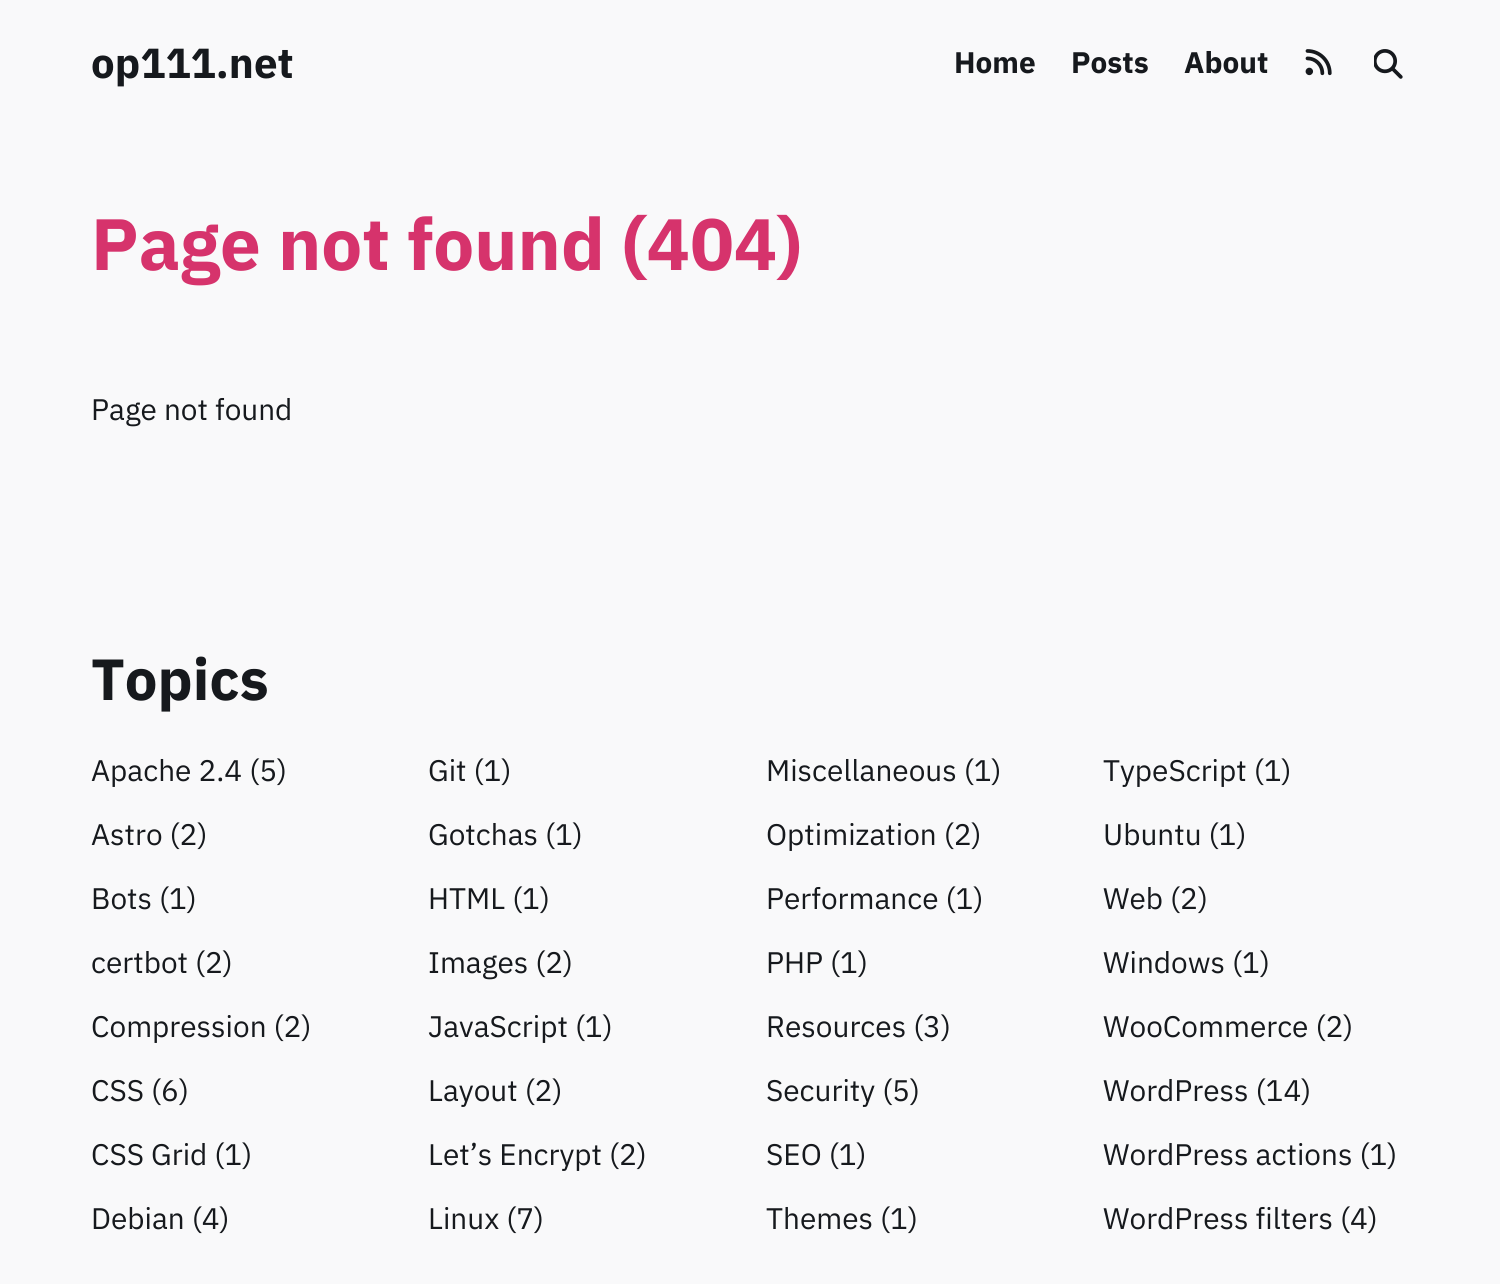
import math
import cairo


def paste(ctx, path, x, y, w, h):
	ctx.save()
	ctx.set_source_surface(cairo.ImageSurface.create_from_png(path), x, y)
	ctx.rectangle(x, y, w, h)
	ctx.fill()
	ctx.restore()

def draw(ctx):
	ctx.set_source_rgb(0.973, 0.976, 0.98)
	ctx.paint()
	ctx.select_font_face('IBM Plex Sans', cairo.FONT_SLANT_NORMAL, cairo.FONT_WEIGHT_BOLD)
	ctx.set_font_size(42)
	ctx.set_source_rgb(0.086, 0.098, 0.114)
	ctx.move_to(91, 78)
	ctx.show_text('op111.net')
	ctx.set_font_size(29.75)
	for x, y, s in [
		(954, 73, 'Home'),
		(1071, 73, 'Posts'),
		(1184, 73, 'About'),
	]:
		ctx.move_to(x, y)
		ctx.show_text(s)
	paste(ctx, 'media/1.png', 1305, 49, 27, 27)
	paste(ctx, 'media/2.png', 1374, 49, 29, 30)
	ctx.set_font_size(72.6)
	ctx.set_source_rgb(0.839, 0.2, 0.424)
	ctx.move_to(91, 270)
	ctx.show_text('Page not found (404)')
	ctx.select_font_face('IBM Plex Sans')
	ctx.set_font_size(29.75)
	ctx.set_source_rgb(0.086, 0.098, 0.114)
	ctx.move_to(91, 420)
	ctx.show_text('Page not found')
	ctx.select_font_face('IBM Plex Sans', cairo.FONT_SLANT_NORMAL, cairo.FONT_WEIGHT_BOLD)
	ctx.set_font_size(58)
	ctx.move_to(91, 700)
	ctx.show_text('Topics')
	ctx.select_font_face('IBM Plex Sans')
	ctx.set_font_size(29.75)
	for x, y, s in [
		(91, 781, 'Apache 2.4 (5)'),
		(428, 781, 'Git (1)'),
		(766, 781, 'Miscellaneous (1)'),
		(1103, 781, 'TypeScript (1)'),
		(91, 845, 'Astro (2)'),
		(428, 845, 'Gotchas (1)'),
		(766, 845, 'Optimization (2)'),
		(1103, 845, 'Ubuntu (1)'),
		(91, 909, 'Bots (1)'),
		(428, 909, 'HTML (1)'),
		(766, 909, 'Performance (1)'),
		(1103, 909, 'Web (2)'),
		(91, 973, 'certbot (2)'),
		(428, 973, 'Images (2)'),
		(766, 973, 'PHP (1)'),
		(1103, 973, 'Windows (1)'),
		(91, 1037, 'Compression (2)'),
		(428, 1037, 'JavaScript (1)'),
		(766, 1037, 'Resources (3)'),
		(1103, 1037, 'WooCommerce (2)'),
		(91, 1101, 'CSS (6)'),
		(428, 1101, 'Layout (2)'),
		(766, 1101, 'Security (5)'),
		(1103, 1101, 'WordPress (14)'),
		(91, 1165, 'CSS Grid (1)'),
		(428, 1165, 'Let’s Encrypt (2)'),
		(766, 1165, 'SEO (1)'),
		(1103, 1165, 'WordPress actions (1)'),
		(91, 1229, 'Debian (4)'),
		(428, 1229, 'Linux (7)'),
		(766, 1229, 'Themes (1)'),
		(1103, 1229, 'WordPress filters (4)'),
	]:
		ctx.move_to(x, y)
		ctx.show_text(s)


surface = cairo.ImageSurface(cairo.FORMAT_RGB24, 1500, 1284)
ctx = cairo.Context(surface)
options = cairo.FontOptions()
options.set_hint_metrics(cairo.HINT_METRICS_OFF)
options.set_hint_style(cairo.HINT_STYLE_NONE)
ctx.set_font_options(options)
ctx.set_miter_limit(4)
draw(ctx)
surface.write_to_png('image.png')
